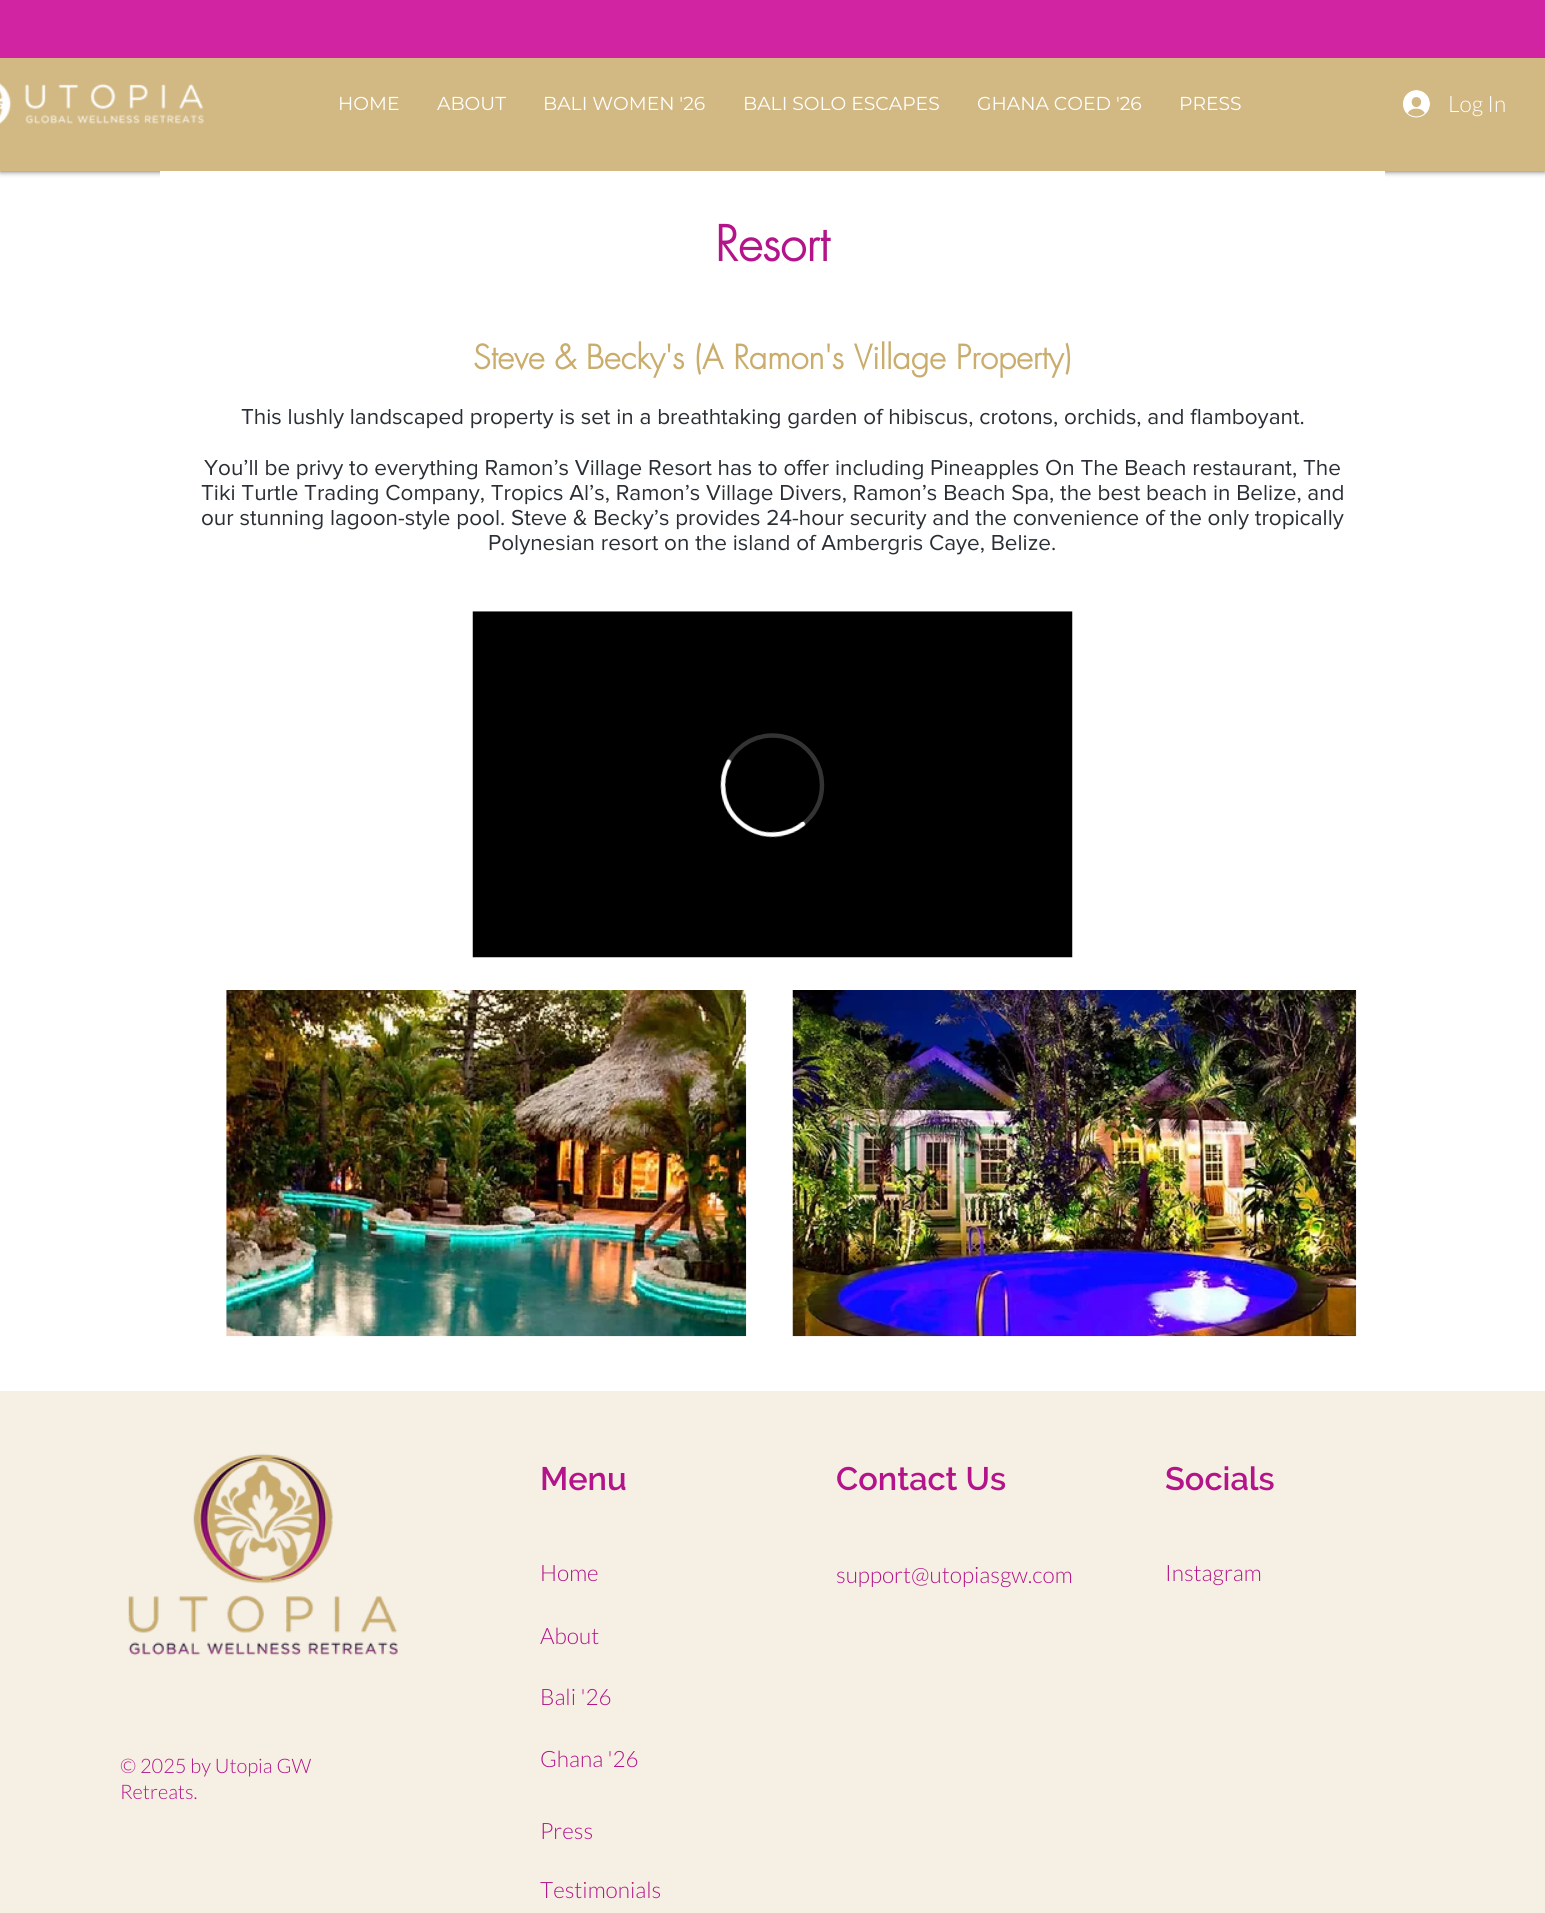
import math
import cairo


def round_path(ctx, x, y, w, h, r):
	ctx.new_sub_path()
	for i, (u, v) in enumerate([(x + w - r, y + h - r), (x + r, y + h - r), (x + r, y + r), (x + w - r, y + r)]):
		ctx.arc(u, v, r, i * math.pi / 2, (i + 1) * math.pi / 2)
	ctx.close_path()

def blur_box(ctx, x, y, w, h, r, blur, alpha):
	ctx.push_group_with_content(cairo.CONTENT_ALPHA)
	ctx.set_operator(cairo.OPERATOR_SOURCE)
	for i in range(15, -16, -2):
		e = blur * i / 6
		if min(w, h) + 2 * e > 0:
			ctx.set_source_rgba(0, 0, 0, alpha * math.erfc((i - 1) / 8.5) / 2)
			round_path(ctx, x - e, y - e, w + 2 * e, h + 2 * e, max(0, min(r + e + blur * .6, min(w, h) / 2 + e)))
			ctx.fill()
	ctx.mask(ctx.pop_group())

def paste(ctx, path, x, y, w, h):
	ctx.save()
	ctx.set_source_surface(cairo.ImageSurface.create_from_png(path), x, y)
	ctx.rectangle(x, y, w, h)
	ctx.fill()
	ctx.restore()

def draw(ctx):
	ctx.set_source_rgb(1, 1, 1)
	ctx.paint()
	ctx.set_source_rgb(0, 0, 0)
	blur_box(ctx, 0, -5, 1545, 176, 0, 3, 0.7)
	ctx.set_source_rgb(0.824, 0.725, 0.514)
	ctx.rectangle(0, 58, 1545, 113)
	ctx.fill()
	ctx.set_source_rgb(0.82, 0.141, 0.639)
	ctx.rectangle(0, 0, 1545, 58)
	ctx.fill()
	paste(ctx, 'media/1.png', 0, 83, 204, 41)
	ctx.select_font_face('Montserrat')
	ctx.set_font_size(18.75)
	ctx.set_source_rgb(1, 1, 1)
	for x, y, s in [
		(338, 110, 'HOME'),
		(437, 110, 'ABOUT'),
		(543, 110, 'BALI WOMEN \'26'),
		(743, 110, 'BALI SOLO ESCAPES'),
		(977, 110, 'GHANA COED \'26'),
		(1179, 110, 'PRESS'),
	]:
		ctx.move_to(x, y)
		ctx.show_text(s)
	paste(ctx, 'media/2.png', 1403, 90, 27, 28)
	ctx.select_font_face('Lato Light')
	ctx.set_font_size(22.5)
	ctx.move_to(1448, 112)
	ctx.show_text('Log In')
	ctx.rectangle(160, 171, 1225, 7)
	ctx.fill()
	ctx.select_font_face('futura', cairo.FONT_SLANT_NORMAL, cairo.FONT_WEIGHT_BOLD)
	ctx.set_font_size(47.5)
	ctx.set_source_rgb(0.702, 0.082, 0.537)
	ctx.move_to(715, 261)
	ctx.show_text('Resort')
	ctx.set_font_size(32.5)
	ctx.set_source_rgb(0.792, 0.678, 0.427)
	ctx.move_to(473, 369)
	ctx.show_text('Steve & Becky\'s (A Ramon\'s Village Property)')
	ctx.select_font_face('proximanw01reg')
	ctx.set_font_size(22.5)
	ctx.set_source_rgb(0.165, 0.184, 0.212)
	for x, y, s in [
		(241, 424, 'This lushly landscaped property is set in a breathtaking garden of hibiscus, crotons, orchids, and flamboyant.'),
		(204, 475, 'You’ll be privy to everything Ramon’s Village Resort has to offer including Pineapples On The Beach restaurant, The'),
		(201, 500, 'Tiki Turtle Trading Company, Tropics Al’s, Ramon’s Village Divers, Ramon’s Beach Spa, the best beach in Belize, and'),
		(201, 525, 'our stunning lagoon-style pool. Steve & Becky’s provides 24-hour security and the convenience of the only tropically'),
		(488, 550, 'Polynesian resort on the island of Ambergris Caye, Belize.'),
	]:
		ctx.move_to(x, y)
		ctx.show_text(s)
	paste(ctx, 'media/3.png', 472, 611, 601, 347)
	paste(ctx, 'media/4.png', 226, 990, 521, 347)
	paste(ctx, 'media/5.png', 792, 990, 565, 347)
	ctx.set_source_rgb(0.961, 0.941, 0.894)
	ctx.rectangle(0, 1391, 1545, 522)
	ctx.fill()
	paste(ctx, 'media/6.png', 128, 1453, 270, 203)
	ctx.select_font_face('Raleway SemiBold')
	ctx.set_font_size(32.5)
	ctx.set_source_rgb(0.702, 0.082, 0.537)
	for x, y, s in [
		(540, 1490, 'Menu'),
		(836, 1490, 'Contact Us'),
		(1165, 1490, 'Socials'),
	]:
		ctx.move_to(x, y)
		ctx.show_text(s)
	ctx.select_font_face('Lato Light')
	ctx.set_font_size(22.5)
	for x, y, s in [
		(540, 1581, 'Home'),
		(836, 1583, 'support@utopiasgw.com'),
		(1165, 1581, 'Instagram'),
		(540, 1644, 'About'),
		(540, 1705, 'Bali \'26'),
	]:
		ctx.move_to(x, y)
		ctx.show_text(s)
	ctx.set_font_size(20)
	ctx.move_to(120, 1773)
	ctx.show_text('© 2025 by Utopia GW')
	ctx.move_to(120, 1799)
	ctx.show_text('Retreats.')
	ctx.set_font_size(22.5)
	for x, y, s in [
		(540, 1767, 'Ghana \'26'),
		(540, 1839, 'Press'),
		(540, 1898, 'Testimonials'),
	]:
		ctx.move_to(x, y)
		ctx.show_text(s)


surface = cairo.ImageSurface(cairo.FORMAT_RGB24, 1545, 1913)
ctx = cairo.Context(surface)
options = cairo.FontOptions()
options.set_hint_metrics(cairo.HINT_METRICS_OFF)
options.set_hint_style(cairo.HINT_STYLE_NONE)
ctx.set_font_options(options)
ctx.set_miter_limit(4)
draw(ctx)
surface.write_to_png('image.png')
